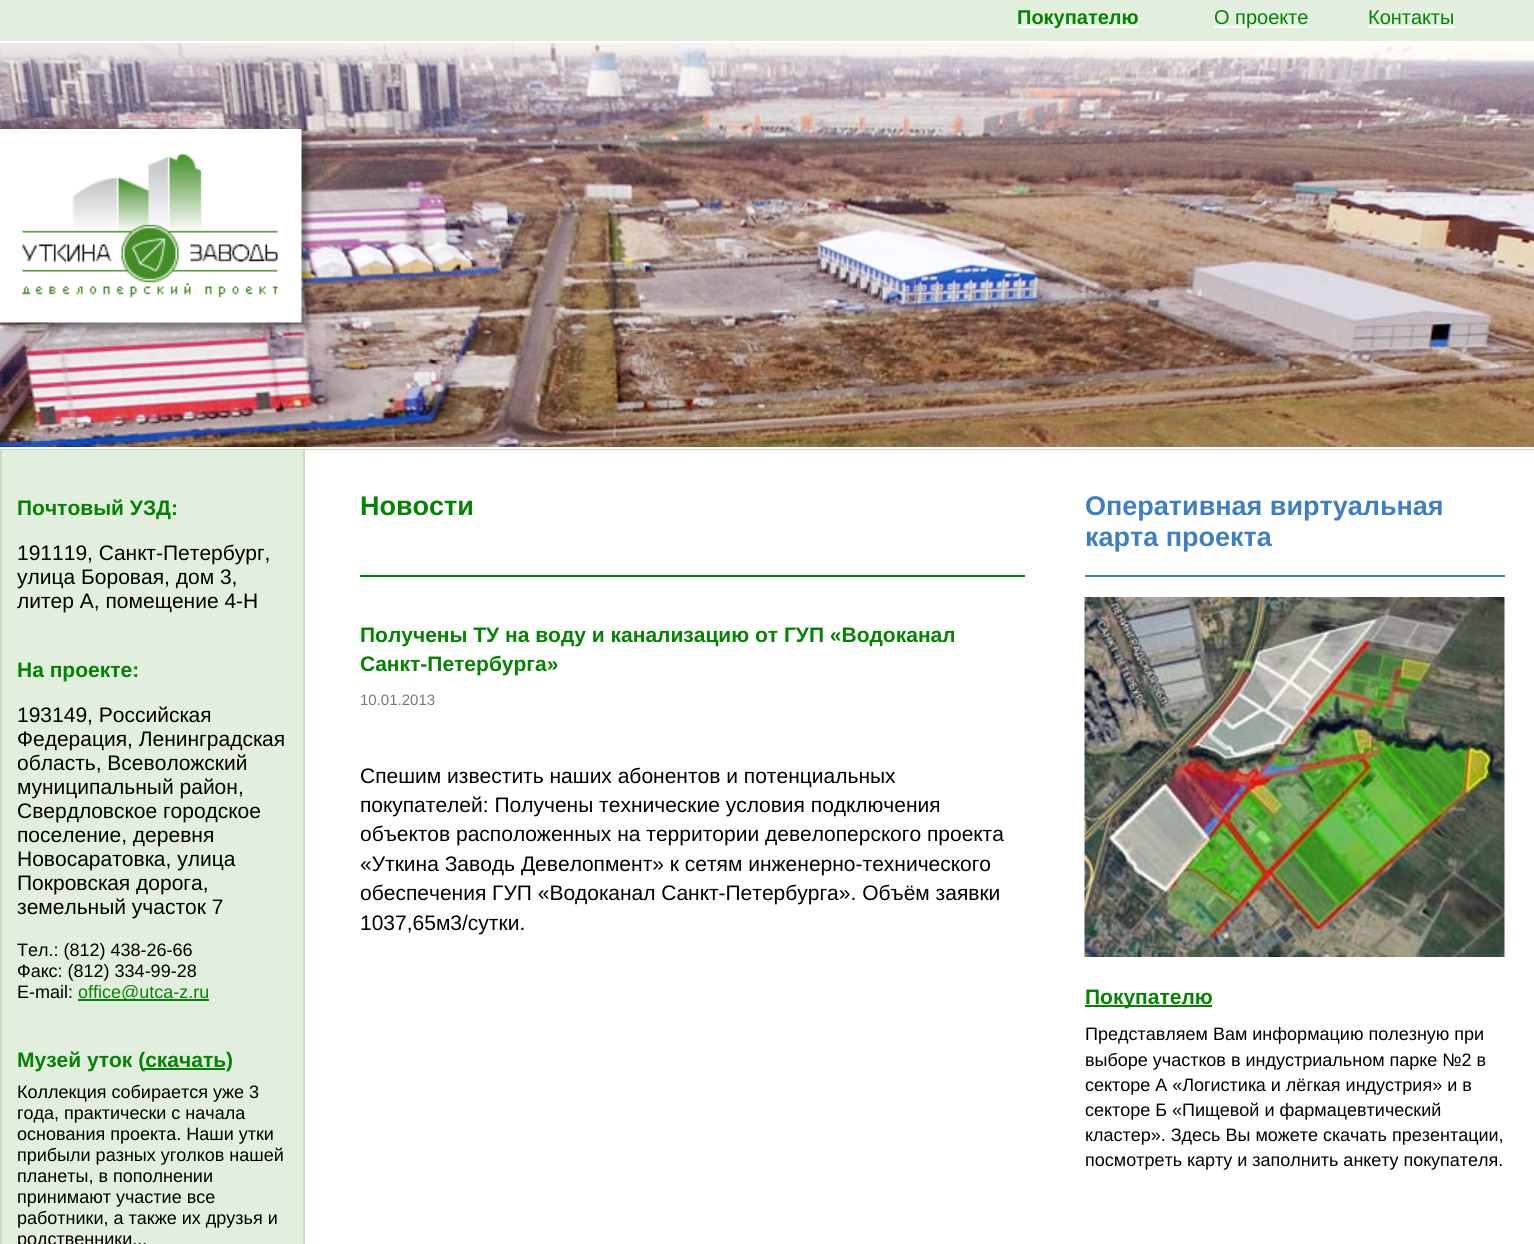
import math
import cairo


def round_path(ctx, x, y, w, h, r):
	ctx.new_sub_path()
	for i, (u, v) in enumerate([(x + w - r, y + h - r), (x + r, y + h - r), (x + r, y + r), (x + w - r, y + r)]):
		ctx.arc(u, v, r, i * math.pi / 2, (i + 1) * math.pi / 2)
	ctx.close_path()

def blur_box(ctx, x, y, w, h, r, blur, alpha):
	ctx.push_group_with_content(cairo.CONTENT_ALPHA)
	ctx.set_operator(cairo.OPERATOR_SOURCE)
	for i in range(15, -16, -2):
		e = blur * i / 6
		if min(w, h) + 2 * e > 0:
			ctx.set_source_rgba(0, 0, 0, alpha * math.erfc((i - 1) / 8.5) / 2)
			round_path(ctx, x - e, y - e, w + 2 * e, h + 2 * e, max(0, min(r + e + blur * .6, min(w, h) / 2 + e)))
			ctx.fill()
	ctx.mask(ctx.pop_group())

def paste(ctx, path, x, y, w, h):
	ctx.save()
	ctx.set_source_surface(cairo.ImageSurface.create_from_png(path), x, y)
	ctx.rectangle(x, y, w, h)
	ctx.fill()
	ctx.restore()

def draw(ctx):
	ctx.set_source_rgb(1, 1, 1)
	ctx.paint()
	ctx.set_source_rgb(0.886, 0.933, 0.871)
	ctx.rectangle(0, 0, 1534, 41)
	ctx.fill()
	ctx.set_source_rgb(1, 1, 1)
	ctx.rectangle(1017, 26, 122, 2)
	ctx.fill()
	ctx.select_font_face('Liberation Sans', cairo.FONT_SLANT_NORMAL, cairo.FONT_WEIGHT_BOLD)
	ctx.set_font_size(20)
	ctx.set_source_rgb(0.012, 0.518, 0)
	ctx.move_to(1017, 24)
	ctx.show_text('Покупателю')
	ctx.set_source_rgb(1, 1, 1)
	ctx.rectangle(1214, 26, 94, 2)
	ctx.fill()
	ctx.select_font_face('Liberation Sans')
	ctx.set_source_rgb(0.012, 0.518, 0)
	ctx.move_to(1214, 24)
	ctx.show_text('О проекте')
	ctx.move_to(1368, 24)
	ctx.show_text('Контакты')
	ctx.set_source_rgb(1, 1, 1)
	ctx.rectangle(1368, 26, 87, 2)
	ctx.fill()
	ctx.set_source_rgb(0.776, 0.867, 0.745)
	ctx.rectangle(0, 449, 1534, 1)
	ctx.fill()
	paste(ctx, 'media/1.png', 0, 43, 1534, 404)
	ctx.set_source_rgb(0, 0, 0)
	blur_box(ctx, 6, 135, 302, 194, 0, 3, 0.4)
	paste(ctx, 'media/2.png', 0, 129, 302, 194)
	ctx.set_source_rgb(0.886, 0.933, 0.871)
	ctx.rectangle(2, 450, 301, 794)
	ctx.fill()
	ctx.set_source_rgb(0.776, 0.867, 0.745)
	ctx.rectangle(303, 450, 2, 794)
	ctx.rectangle(0, 450, 2, 794)
	ctx.fill()
	ctx.select_font_face('Liberation Sans', cairo.FONT_SLANT_NORMAL, cairo.FONT_WEIGHT_BOLD)
	ctx.set_font_size(21)
	ctx.set_source_rgb(0.012, 0.518, 0)
	ctx.move_to(17, 515)
	ctx.show_text('Почтовый УЗД:')
	ctx.select_font_face('Liberation Sans')
	ctx.set_source_rgb(0, 0, 0)
	for x, y, s in [
		(17, 560, '191119, Санкт-Петербург,'),
		(17, 584, 'улица Боровая, дом 3,'),
		(17, 608, 'литер А, помещение 4-Н'),
	]:
		ctx.move_to(x, y)
		ctx.show_text(s)
	ctx.select_font_face('Liberation Sans', cairo.FONT_SLANT_NORMAL, cairo.FONT_WEIGHT_BOLD)
	ctx.set_source_rgb(0.012, 0.518, 0)
	ctx.move_to(17, 677)
	ctx.show_text('На проекте:')
	ctx.select_font_face('Liberation Sans')
	ctx.set_source_rgb(0, 0, 0)
	for x, y, s in [
		(17, 722, '193149, Российская'),
		(17, 746, 'Федерация, Ленинградская'),
		(17, 770, 'область, Всеволожский'),
		(17, 794, 'муниципальный район,'),
		(17, 818, 'Свердловское городское'),
		(17, 842, 'поселение, деревня'),
		(17, 866, 'Новосаратовка, улица'),
		(17, 890, 'Покровская дорога,'),
		(17, 914, 'земельный участок 7'),
	]:
		ctx.move_to(x, y)
		ctx.show_text(s)
	ctx.set_font_size(18)
	for x, y, s in [
		(17, 956, 'Тел.: (812) 438-26-66'),
		(17, 977, 'Факс: (812) 334-99-28'),
		(17, 998, 'E-mail:'),
	]:
		ctx.move_to(x, y)
		ctx.show_text(s)
	ctx.set_source_rgb(0.012, 0.518, 0)
	ctx.rectangle(78, 999, 131, 2)
	ctx.fill()
	ctx.move_to(78, 998)
	ctx.show_text('office@utca-z.ru')
	ctx.select_font_face('Liberation Sans', cairo.FONT_SLANT_NORMAL, cairo.FONT_WEIGHT_BOLD)
	ctx.set_font_size(21)
	ctx.move_to(17, 1067)
	ctx.show_text('Музей уток (скачать)')
	ctx.rectangle(144, 1068, 81, 2)
	ctx.fill()
	ctx.select_font_face('Liberation Sans')
	ctx.set_font_size(18)
	ctx.set_source_rgb(0, 0, 0)
	for x, y, s in [
		(17, 1098, 'Коллекция собирается уже 3'),
		(17, 1119, 'года, практически с начала'),
		(17, 1140, 'основания проекта. Наши утки'),
		(17, 1161, 'прибыли разных уголков нашей'),
		(17, 1182, 'планеты, в пополнении'),
		(17, 1203, 'принимают участие все'),
		(17, 1224, 'работники, а также их друзья и'),
		(17, 1245, 'родственники...'),
	]:
		ctx.move_to(x, y)
		ctx.show_text(s)
	ctx.set_source_rgb(0.012, 0.518, 0)
	ctx.rectangle(360, 575, 665, 2)
	ctx.fill()
	ctx.select_font_face('Liberation Sans', cairo.FONT_SLANT_NORMAL, cairo.FONT_WEIGHT_BOLD)
	ctx.set_font_size(27)
	ctx.move_to(360, 515)
	ctx.show_text('Новости')
	ctx.set_font_size(21)
	ctx.move_to(360, 642)
	ctx.show_text('Получены ТУ на воду и канализацию от ГУП «Водоканал')
	ctx.move_to(360, 671)
	ctx.show_text('Санкт-Петербурга»')
	ctx.select_font_face('Liberation Sans')
	ctx.set_font_size(15)
	ctx.set_source_rgb(0.467, 0.467, 0.467)
	ctx.move_to(360, 705)
	ctx.show_text('10.01.2013')
	ctx.set_font_size(21)
	ctx.set_source_rgb(0, 0, 0)
	for x, y, s in [
		(360, 783, 'Спешим известить наших абонентов и потенциальных'),
		(360, 812, 'покупателей: Получены технические условия подключения'),
		(360, 841, 'объектов расположенных на территории девелоперского проекта'),
		(360, 871, '«Уткина Заводь Девелопмент» к сетям инженерно-технического'),
		(360, 900, 'обеспечения ГУП «Водоканал Санкт-Петербурга». Объём заявки'),
		(360, 930, '1037,65м3/сутки.'),
	]:
		ctx.move_to(x, y)
		ctx.show_text(s)
	ctx.set_source_rgb(0.243, 0.494, 0.765)
	ctx.rectangle(1085, 575, 420, 2)
	ctx.fill()
	ctx.select_font_face('Liberation Sans', cairo.FONT_SLANT_NORMAL, cairo.FONT_WEIGHT_BOLD)
	ctx.set_font_size(27)
	ctx.move_to(1085, 515)
	ctx.show_text('Оперативная виртуальная')
	ctx.move_to(1085, 546)
	ctx.show_text('карта проекта')
	paste(ctx, 'media/3.png', 1084, 597, 421, 360)
	ctx.set_source_rgb(0.012, 0.518, 0)
	ctx.rectangle(1085, 1005, 127, 2)
	ctx.fill()
	ctx.set_font_size(21)
	ctx.move_to(1085, 1004)
	ctx.show_text('Покупателю')
	ctx.select_font_face('Liberation Sans')
	ctx.set_font_size(18)
	ctx.set_source_rgb(0, 0, 0)
	for x, y, s in [
		(1085, 1040, 'Представляем Вам информацию полезную при'),
		(1085, 1066, 'выборе участков в индустриальном парке №2 в'),
		(1085, 1091, 'секторе А «Логистика и лёгкая индустрия» и в'),
		(1085, 1116, 'секторе Б «Пищевой и фармацевтический'),
		(1085, 1141, 'кластер». Здесь Вы можете скачать презентации,'),
		(1085, 1166, 'посмотреть карту и заполнить анкету покупателя.'),
	]:
		ctx.move_to(x, y)
		ctx.show_text(s)


surface = cairo.ImageSurface(cairo.FORMAT_RGB24, 1534, 1244)
ctx = cairo.Context(surface)
options = cairo.FontOptions()
options.set_hint_metrics(cairo.HINT_METRICS_OFF)
options.set_hint_style(cairo.HINT_STYLE_NONE)
ctx.set_font_options(options)
ctx.set_miter_limit(4)
draw(ctx)
surface.write_to_png('image.png')
